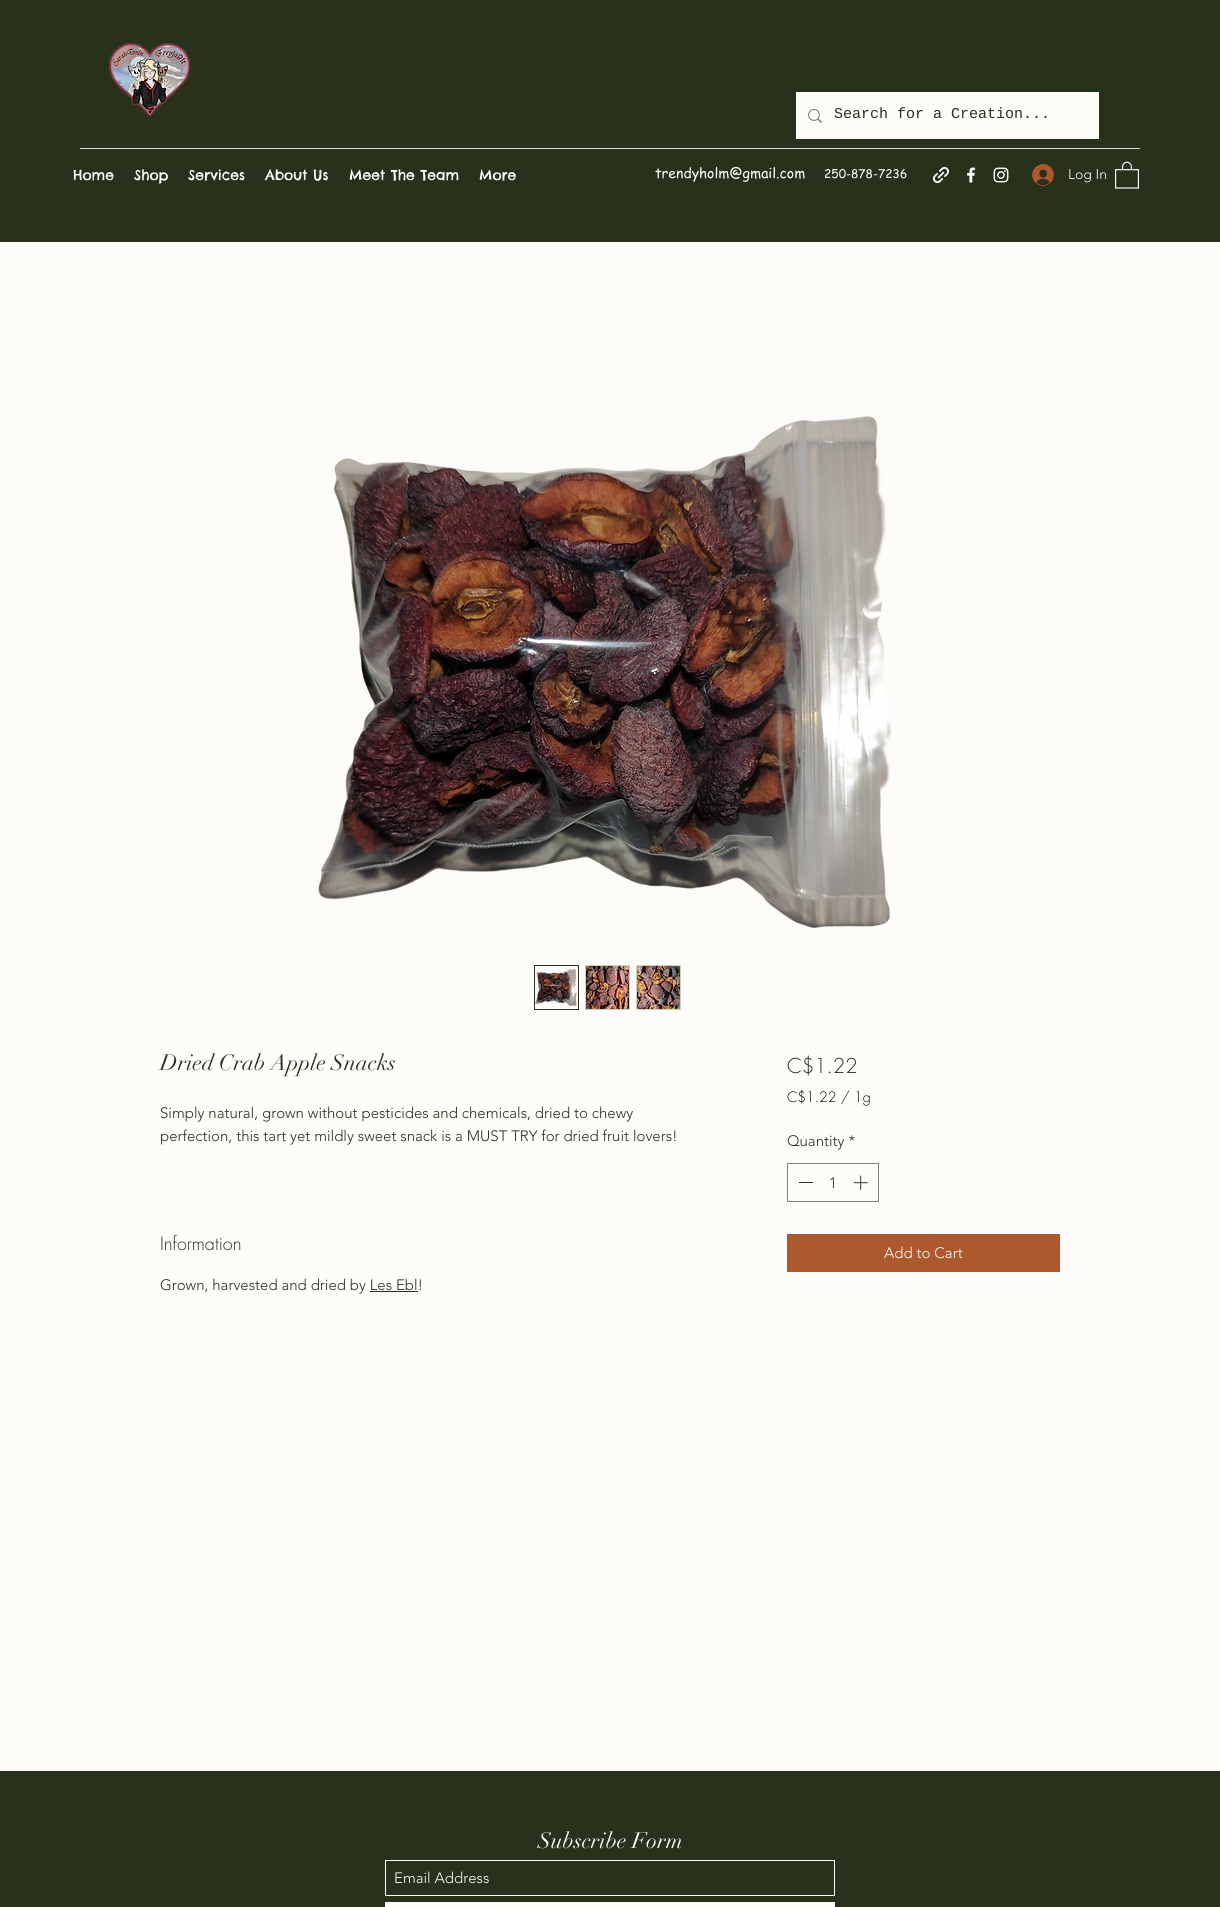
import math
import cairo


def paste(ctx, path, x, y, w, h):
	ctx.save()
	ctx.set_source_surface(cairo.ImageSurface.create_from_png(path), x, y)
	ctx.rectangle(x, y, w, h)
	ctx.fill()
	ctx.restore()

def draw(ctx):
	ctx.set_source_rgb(0.992, 0.988, 0.976)
	ctx.paint()
	ctx.set_source_rgb(0.157, 0.192, 0.106)
	ctx.rectangle(0, 0, 1220, 242)
	ctx.fill()
	paste(ctx, 'media/1.png', 109, 43, 82, 74)
	ctx.set_source_rgb(0.992, 0.988, 0.976)
	ctx.rectangle(796, 92, 303, 47)
	ctx.fill()
	paste(ctx, 'media/2.png', 808, 109, 14, 14)
	ctx.select_font_face('Liberation Mono')
	ctx.set_font_size(15)
	ctx.set_source_rgb(0.157, 0.192, 0.106)
	ctx.move_to(834, 118)
	ctx.show_text('Search for a Creation...')
	ctx.set_source_rgb(0.867, 0.871, 0.847)
	ctx.rectangle(80, 148, 1060, 1)
	ctx.fill()
	ctx.select_font_face('Chelsea Market')
	ctx.set_font_size(14)
	ctx.set_source_rgb(0.992, 0.988, 0.976)
	for x, y, s in [
		(73, 180, 'Home'),
		(134, 180, 'Shop'),
		(188, 180, 'Services'),
		(265, 180, 'About Us'),
		(349, 180, 'Meet The Team'),
		(479, 180, 'More'),
	]:
		ctx.move_to(x, y)
		ctx.show_text(s)
	ctx.select_font_face('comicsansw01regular')
	ctx.move_to(655, 178)
	ctx.show_text('trendyholm@gmail.com')
	ctx.set_font_size(12)
	ctx.move_to(824, 178)
	ctx.show_text('250-878-7236')
	paste(ctx, 'media/3.png', 932, 166, 18, 18)
	paste(ctx, 'media/4.png', 967, 167, 9, 16)
	paste(ctx, 'media/5.png', 993, 167, 16, 16)
	paste(ctx, 'media/6.png', 1032, 164, 22, 22)
	ctx.select_font_face('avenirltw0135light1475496 Light')
	ctx.set_font_size(14)
	ctx.move_to(1068, 179)
	ctx.show_text('Log In')
	paste(ctx, 'media/7.png', 1115, 161, 24, 28)
	paste(ctx, 'media/8.png', 318, 416, 574, 512)
	ctx.rectangle(534.5, 965.5, 44, 44)
	ctx.set_source_rgb(0.157, 0.192, 0.106)
	ctx.set_line_width(1)
	ctx.stroke()
	paste(ctx, 'media/9.png', 535, 968, 42, 38)
	ctx.rectangle(585.5, 965.5, 44, 44)
	ctx.set_source_rgb(0.788, 0.839, 0.71)
	ctx.stroke()
	paste(ctx, 'media/10.png', 586, 966, 43, 43)
	ctx.rectangle(636.5, 965.5, 44, 44)
	ctx.stroke()
	paste(ctx, 'media/11.png', 637, 966, 43, 43)
	ctx.select_font_face('didot')
	ctx.set_font_size(22)
	ctx.set_source_rgb(0.157, 0.192, 0.106)
	ctx.move_to(160, 1070)
	ctx.show_text('Dried Crab Apple Snacks')
	ctx.select_font_face('avenirltw0135light1475496 Light')
	ctx.set_font_size(15)
	ctx.move_to(160, 1118)
	ctx.show_text('Simply natural, grown without pesticides and chemicals, dried to chewy')
	ctx.move_to(160, 1141)
	ctx.show_text('perfection, this tart yet mildly sweet snack is a MUST TRY for dried fruit lovers!')
	ctx.select_font_face('futura Light')
	ctx.set_font_size(18)
	ctx.move_to(160, 1250)
	ctx.show_text('Information')
	ctx.select_font_face('avenirltw0135light1475496 Light')
	ctx.set_font_size(15)
	ctx.move_to(160, 1290)
	ctx.show_text('Grown, harvested and dried by Les Ebl!')
	ctx.rectangle(370, 1291, 48, 1)
	ctx.fill()
	ctx.select_font_face('futura Light')
	ctx.set_font_size(20)
	ctx.move_to(787, 1073)
	ctx.show_text('C$1.22')
	ctx.set_font_size(14)
	ctx.set_source_rgb(0, 0, 0)
	ctx.move_to(787, 1102)
	ctx.show_text('C$1.22 / 1g')
	ctx.select_font_face('avenirltw0135light1475496 Light')
	ctx.set_font_size(15)
	ctx.set_source_rgb(0.157, 0.192, 0.106)
	ctx.move_to(787, 1146)
	ctx.show_text('Quantity *')
	ctx.rectangle(787.5, 1163.5, 91, 38)
	ctx.set_source_rgb(0.49, 0.51, 0.455)
	ctx.stroke()
	ctx.set_source_rgb(0.157, 0.192, 0.106)
	ctx.rectangle(799, 1182, 14, 1)
	ctx.fill()
	ctx.move_to(829, 1188)
	ctx.show_text('1')
	paste(ctx, 'media/12.png', 853, 1175, 15, 15)
	ctx.set_source_rgb(0.682, 0.345, 0.176)
	ctx.rectangle(787, 1234, 273, 38)
	ctx.fill()
	ctx.set_source_rgb(0.992, 0.988, 0.976)
	ctx.move_to(884, 1258)
	ctx.show_text('Add to Cart')
	ctx.set_source_rgb(0.157, 0.192, 0.106)
	ctx.rectangle(0, 1771, 1220, 136)
	ctx.fill()
	ctx.select_font_face('didot')
	ctx.set_font_size(22)
	ctx.set_source_rgb(0.992, 0.988, 0.976)
	ctx.move_to(538, 1848)
	ctx.show_text('Subscribe Form')
	ctx.rectangle(385.5, 1860.5, 449, 35)
	ctx.stroke()
	ctx.select_font_face('avenirltw0135light1475496 Light')
	ctx.set_font_size(15)
	ctx.move_to(394, 1883)
	ctx.show_text('Email Address')
	ctx.rectangle(385, 1902, 450, 5)
	ctx.fill()


surface = cairo.ImageSurface(cairo.FORMAT_RGB24, 1220, 1907)
ctx = cairo.Context(surface)
options = cairo.FontOptions()
options.set_hint_metrics(cairo.HINT_METRICS_OFF)
options.set_hint_style(cairo.HINT_STYLE_NONE)
ctx.set_font_options(options)
ctx.set_miter_limit(4)
draw(ctx)
surface.write_to_png('image.png')
